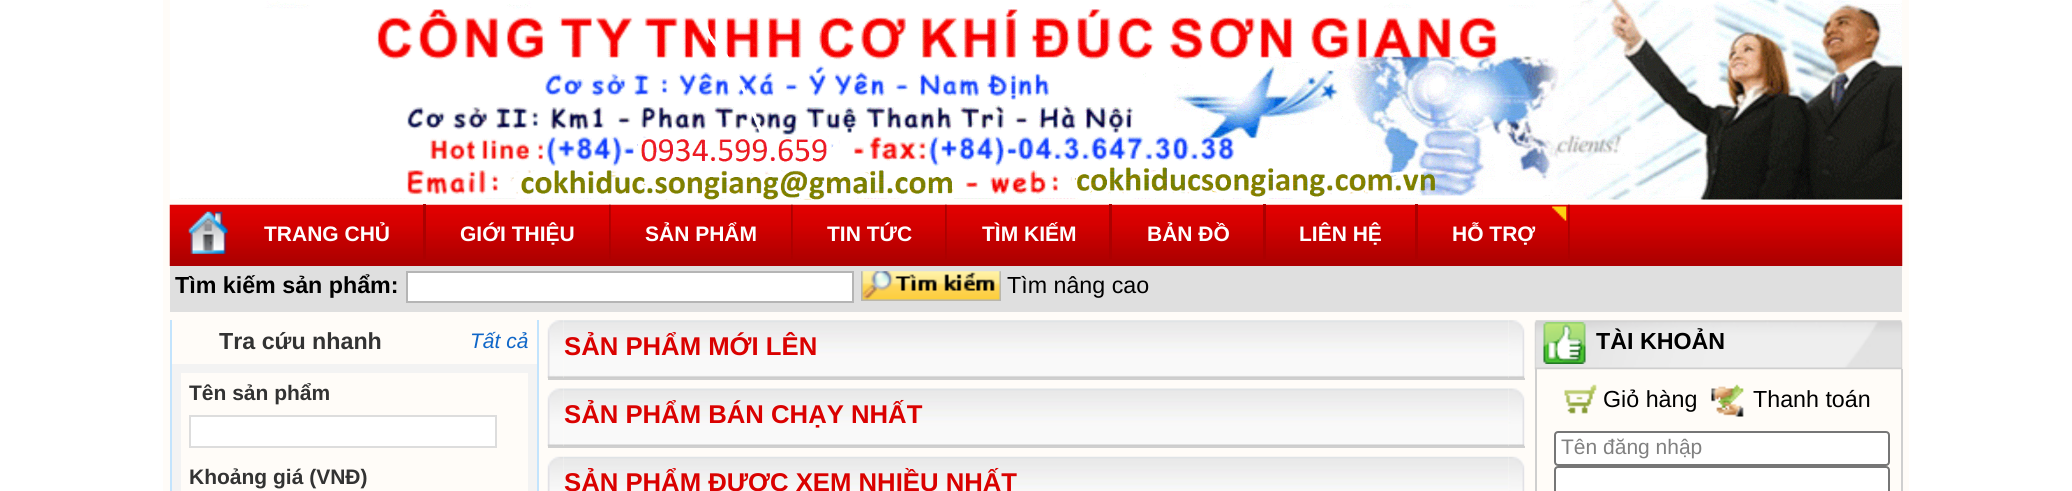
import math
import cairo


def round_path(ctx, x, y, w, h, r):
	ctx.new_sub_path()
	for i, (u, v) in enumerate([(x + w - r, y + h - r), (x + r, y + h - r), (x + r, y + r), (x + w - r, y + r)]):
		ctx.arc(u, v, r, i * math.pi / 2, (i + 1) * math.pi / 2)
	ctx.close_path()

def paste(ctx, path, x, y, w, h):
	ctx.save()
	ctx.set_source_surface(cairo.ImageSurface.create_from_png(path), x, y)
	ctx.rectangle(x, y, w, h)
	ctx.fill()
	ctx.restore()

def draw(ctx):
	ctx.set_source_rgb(1, 1, 1)
	ctx.paint()
	ctx.set_source_rgb(1, 0.988, 0.969)
	ctx.rectangle(163, 0, 1746, 491)
	ctx.fill()
	paste(ctx, 'media/1.png', 170, 0, 1733, 200)
	paste(ctx, 'media/2.png', 169, 204, 1734, 62)
	paste(ctx, 'media/3.png', 188, 211, 40, 43)
	ctx.set_source_rgb(0.675, 0, 0)
	ctx.rectangle(423, 204, 3, 55)
	ctx.fill()
	ctx.select_font_face('Liberation Sans', cairo.FONT_SLANT_NORMAL, cairo.FONT_WEIGHT_BOLD)
	ctx.set_font_size(21)
	ctx.set_source_rgb(1, 1, 1)
	ctx.move_to(264, 241)
	ctx.show_text('TRANG CHỦ')
	paste(ctx, 'media/4.png', 609, 204, 2, 55)
	ctx.move_to(460, 241)
	ctx.show_text('GIỚI THIỆU')
	paste(ctx, 'media/4.png', 791, 204, 2, 55)
	ctx.move_to(645, 241)
	ctx.show_text('SẢN PHẨM')
	paste(ctx, 'media/4.png', 945, 204, 2, 55)
	ctx.move_to(827, 241)
	ctx.show_text('TIN TỨC')
	ctx.set_source_rgb(0.675, 0, 0)
	ctx.rectangle(1109, 204, 3, 55)
	ctx.fill()
	ctx.set_source_rgb(1, 1, 1)
	ctx.move_to(982, 241)
	ctx.show_text('TÌM KIẾM')
	ctx.set_source_rgb(0.675, 0, 0)
	ctx.rectangle(1263, 204, 3, 55)
	ctx.fill()
	ctx.set_source_rgb(1, 1, 1)
	ctx.move_to(1147, 241)
	ctx.show_text('BẢN ĐỒ')
	ctx.set_source_rgb(0.675, 0, 0)
	ctx.rectangle(1415, 204, 3, 55)
	ctx.fill()
	ctx.set_source_rgb(1, 1, 1)
	ctx.move_to(1299, 241)
	ctx.show_text('LIÊN HỆ')
	paste(ctx, 'media/4.png', 1568, 204, 2, 55)
	paste(ctx, 'media/5.png', 1552, 206, 15, 15)
	ctx.move_to(1452, 241)
	ctx.show_text('HỖ TRỢ')
	ctx.set_source_rgb(0.875, 0.875, 0.875)
	ctx.rectangle(170, 266, 1732, 46)
	ctx.fill()
	ctx.set_font_size(23.25)
	ctx.set_source_rgb(0, 0, 0)
	ctx.move_to(175, 293)
	ctx.show_text('Tìm kiếm sản phẩm:')
	ctx.set_source_rgb(1, 1, 1)
	ctx.rectangle(407, 272, 446, 30)
	ctx.fill_preserve()
	ctx.set_source_rgb(0.71, 0.71, 0.71)
	ctx.stroke()
	paste(ctx, 'media/6.png', 861, 271, 140, 30)
	ctx.select_font_face('Liberation Sans')
	ctx.set_source_rgb(0, 0, 0)
	ctx.move_to(1007, 293)
	ctx.show_text('Tìm nâng cao')
	ctx.set_source_rgb(0.765, 0.894, 0.992)
	ctx.rectangle(537, 320, 2, 171)
	ctx.fill()
	ctx.rectangle(170, 320, 2, 171)
	ctx.fill()
	ctx.select_font_face('Liberation Sans', cairo.FONT_SLANT_NORMAL, cairo.FONT_WEIGHT_BOLD)
	ctx.set_source_rgb(0.2, 0.2, 0.2)
	ctx.move_to(219, 349)
	ctx.show_text('Tra cứu nhanh')
	ctx.select_font_face('Liberation Sans', cairo.FONT_SLANT_ITALIC)
	ctx.set_font_size(21)
	ctx.set_source_rgb(0.059, 0.4, 0.784)
	ctx.move_to(470, 348)
	ctx.show_text('Tất cả')
	ctx.rectangle(176.5, 368.5, 356, 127)
	ctx.set_source_rgb(0.953, 0.953, 0.953)
	ctx.set_line_width(9)
	ctx.stroke()
	ctx.select_font_face('Liberation Sans', cairo.FONT_SLANT_NORMAL, cairo.FONT_WEIGHT_BOLD)
	ctx.set_source_rgb(0.2, 0.2, 0.2)
	ctx.move_to(189, 400)
	ctx.show_text('Tên sản phẩm')
	ctx.set_source_rgb(1, 1, 1)
	ctx.rectangle(190, 416, 306, 31)
	ctx.fill_preserve()
	ctx.set_source_rgb(0.867, 0.867, 0.867)
	ctx.set_line_width(2)
	ctx.stroke()
	ctx.set_source_rgb(0.2, 0.2, 0.2)
	ctx.move_to(189, 484)
	ctx.show_text('Khoảng giá (VNĐ)')
	paste(ctx, 'media/8.png', 563, 320, 946, 58)
	paste(ctx, 'media/7.png', 547, 320, 17, 58)
	ctx.set_font_size(25.7)
	ctx.set_source_rgb(0.855, 0.004, 0)
	ctx.move_to(564, 355)
	ctx.show_text('SẢN PHẨM MỚI LÊN')
	paste(ctx, 'media/9.png', 1508, 320, 17, 58)
	ctx.set_source_rgb(0.812, 0.812, 0.812)
	ctx.rectangle(548, 378, 977, 2)
	ctx.fill()
	paste(ctx, 'media/11.png', 563, 388, 946, 58)
	paste(ctx, 'media/10.png', 547, 388, 17, 59)
	ctx.set_source_rgb(0.855, 0.004, 0)
	ctx.move_to(564, 423)
	ctx.show_text('SẢN PHẨM BÁN CHẠY NHẤT')
	paste(ctx, 'media/12.png', 1508, 388, 17, 58)
	ctx.set_source_rgb(0.812, 0.812, 0.812)
	ctx.rectangle(548, 446, 977, 2)
	ctx.fill()
	paste(ctx, 'media/14.png', 563, 456, 946, 35)
	paste(ctx, 'media/13.png', 547, 456, 17, 35)
	ctx.set_source_rgb(0.855, 0.004, 0)
	ctx.move_to(564, 491)
	ctx.show_text('SẢN PHẨM ĐƯỢC XEM NHIỀU NHẤT')
	paste(ctx, 'media/15.png', 1508, 456, 17, 35)
	paste(ctx, 'media/16.png', 1534, 320, 369, 50)
	paste(ctx, 'media/17.png', 1543, 322, 43, 42)
	ctx.set_font_size(23.25)
	ctx.set_source_rgb(0, 0, 0)
	ctx.move_to(1596, 349)
	ctx.show_text('TÀI KHOẢN')
	ctx.set_source_rgb(0.812, 0.812, 0.812)
	ctx.rectangle(1901, 369, 2, 122)
	ctx.fill()
	ctx.rectangle(1535, 369, 2, 122)
	ctx.fill()
	paste(ctx, 'media/18.png', 1564, 384, 180, 33)
	ctx.select_font_face('Liberation Sans')
	ctx.set_source_rgb(0, 0, 0)
	ctx.move_to(1603, 407)
	ctx.show_text('Giỏ hàng')
	ctx.move_to(1753, 407)
	ctx.show_text('Thanh toán')
	ctx.set_source_rgb(1, 1, 1)
	round_path(ctx, 1555, 432, 334, 33, 3)
	ctx.fill_preserve()
	ctx.set_source_rgb(0.463, 0.463, 0.463)
	ctx.stroke()
	ctx.set_font_size(21)
	ctx.set_source_rgb(0.502, 0.502, 0.502)
	ctx.move_to(1561, 454)
	ctx.show_text('Tên đăng nhập')
	ctx.set_source_rgb(1, 1, 1)
	round_path(ctx, 1555, 467, 334, 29, 3)
	ctx.fill_preserve()
	ctx.set_source_rgb(0.463, 0.463, 0.463)
	ctx.stroke()


surface = cairo.ImageSurface(cairo.FORMAT_RGB24, 2072, 491)
ctx = cairo.Context(surface)
options = cairo.FontOptions()
options.set_hint_metrics(cairo.HINT_METRICS_OFF)
options.set_hint_style(cairo.HINT_STYLE_NONE)
ctx.set_font_options(options)
ctx.set_miter_limit(4)
draw(ctx)
surface.write_to_png('image.png')
